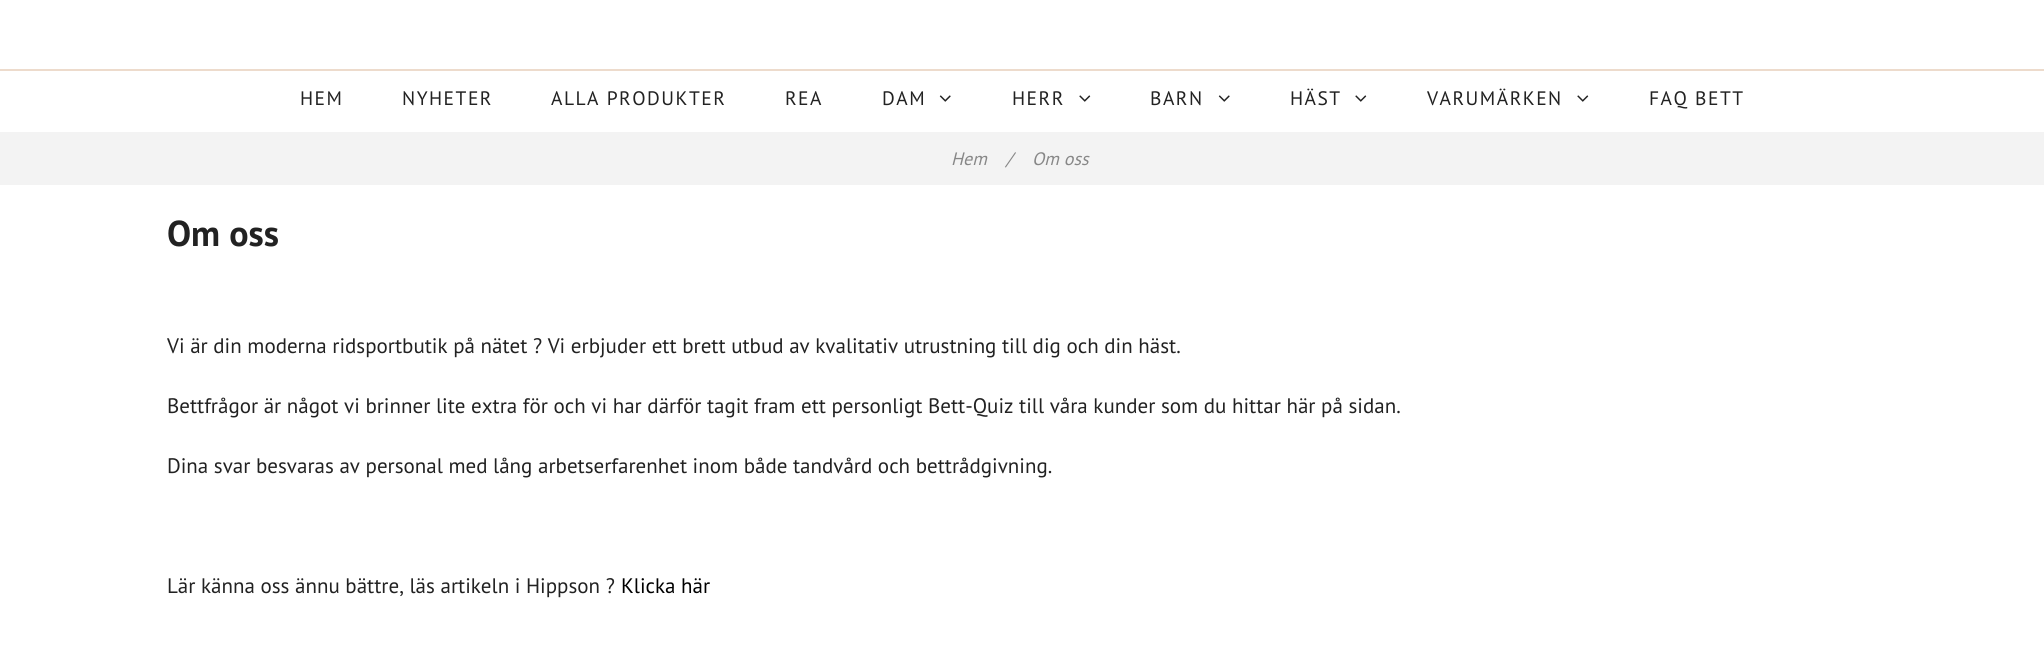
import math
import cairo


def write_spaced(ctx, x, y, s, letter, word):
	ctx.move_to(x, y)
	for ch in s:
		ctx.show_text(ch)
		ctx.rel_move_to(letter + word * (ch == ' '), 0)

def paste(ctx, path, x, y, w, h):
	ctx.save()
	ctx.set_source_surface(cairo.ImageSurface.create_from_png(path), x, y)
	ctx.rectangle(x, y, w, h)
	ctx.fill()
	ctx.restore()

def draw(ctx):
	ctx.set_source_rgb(1, 1, 1)
	ctx.paint()
	ctx.set_source_rgb(0.929, 0.859, 0.8)
	ctx.rectangle(0, 69, 2044, 2)
	ctx.fill()
	ctx.select_font_face('PT Sans')
	ctx.set_font_size(19.5)
	ctx.set_source_rgb(0.133, 0.133, 0.133)
	for x, y, s in [
		(300, 105, 'HEM'),
		(402, 105, 'NYHETER'),
		(551, 105, 'ALLA PRODUKTER'),
		(785, 105, 'REA'),
		(882, 105, 'DAM'),
	]:
		write_spaced(ctx, x, y, s, 1.5, 0)
	paste(ctx, 'media/1.png', 939, 95, 12, 7)
	write_spaced(ctx, 1012, 105, 'HERR', 1.5, 0)
	paste(ctx, 'media/2.png', 1079, 95, 12, 7)
	write_spaced(ctx, 1150, 105, 'BARN', 1.5, 0)
	paste(ctx, 'media/1.png', 1218, 95, 12, 7)
	write_spaced(ctx, 1290, 105, 'HÄST', 1.5, 0)
	paste(ctx, 'media/2.png', 1355, 95, 12, 7)
	write_spaced(ctx, 1427, 105, 'VARUMÄRKEN', 1.5, 0)
	paste(ctx, 'media/2.png', 1577, 95, 12, 7)
	write_spaced(ctx, 1649, 105, 'FAQ BETT', 1.5, 0)
	ctx.set_source_rgb(0.953, 0.953, 0.953)
	ctx.rectangle(0, 132, 2044, 53)
	ctx.fill()
	ctx.select_font_face('PT Sans', cairo.FONT_SLANT_ITALIC)
	ctx.set_font_size(18)
	ctx.set_source_rgb(0.529, 0.529, 0.529)
	for x, y, s in [
		(951, 165, 'Hem'),
		(1006, 165, '/'),
		(1032, 165, 'Om oss'),
	]:
		ctx.move_to(x, y)
		ctx.show_text(s)
	ctx.select_font_face('PT Sans', cairo.FONT_SLANT_NORMAL, cairo.FONT_WEIGHT_BOLD)
	ctx.set_font_size(36)
	ctx.set_source_rgb(0.133, 0.133, 0.133)
	ctx.move_to(167, 246)
	ctx.show_text('Om oss')
	ctx.select_font_face('PT Sans')
	ctx.set_font_size(21)
	for x, y, s in [
		(167, 353, 'Vi är din moderna ridsportbutik på nätet ? Vi erbjuder ett brett utbud av kvalitativ utrustning till dig och din häst.'),
		(167, 413, 'Bettfrågor är något vi brinner lite extra för och vi har därför tagit fram ett personligt Bett-Quiz till våra kunder som du hittar här på sidan.'),
		(167, 473, 'Dina svar besvaras av personal med lång arbetserfarenhet inom både tandvård och bettrådgivning.'),
		(167, 593, 'Lär känna oss ännu bättre, läs artikeln i Hippson ?'),
	]:
		ctx.move_to(x, y)
		ctx.show_text(s)
	ctx.set_source_rgb(0, 0, 0)
	ctx.move_to(621, 593)
	ctx.show_text('Klicka här')


surface = cairo.ImageSurface(cairo.FORMAT_RGB24, 2044, 647)
ctx = cairo.Context(surface)
options = cairo.FontOptions()
options.set_hint_metrics(cairo.HINT_METRICS_OFF)
options.set_hint_style(cairo.HINT_STYLE_NONE)
ctx.set_font_options(options)
ctx.set_miter_limit(4)
draw(ctx)
surface.write_to_png('image.png')
